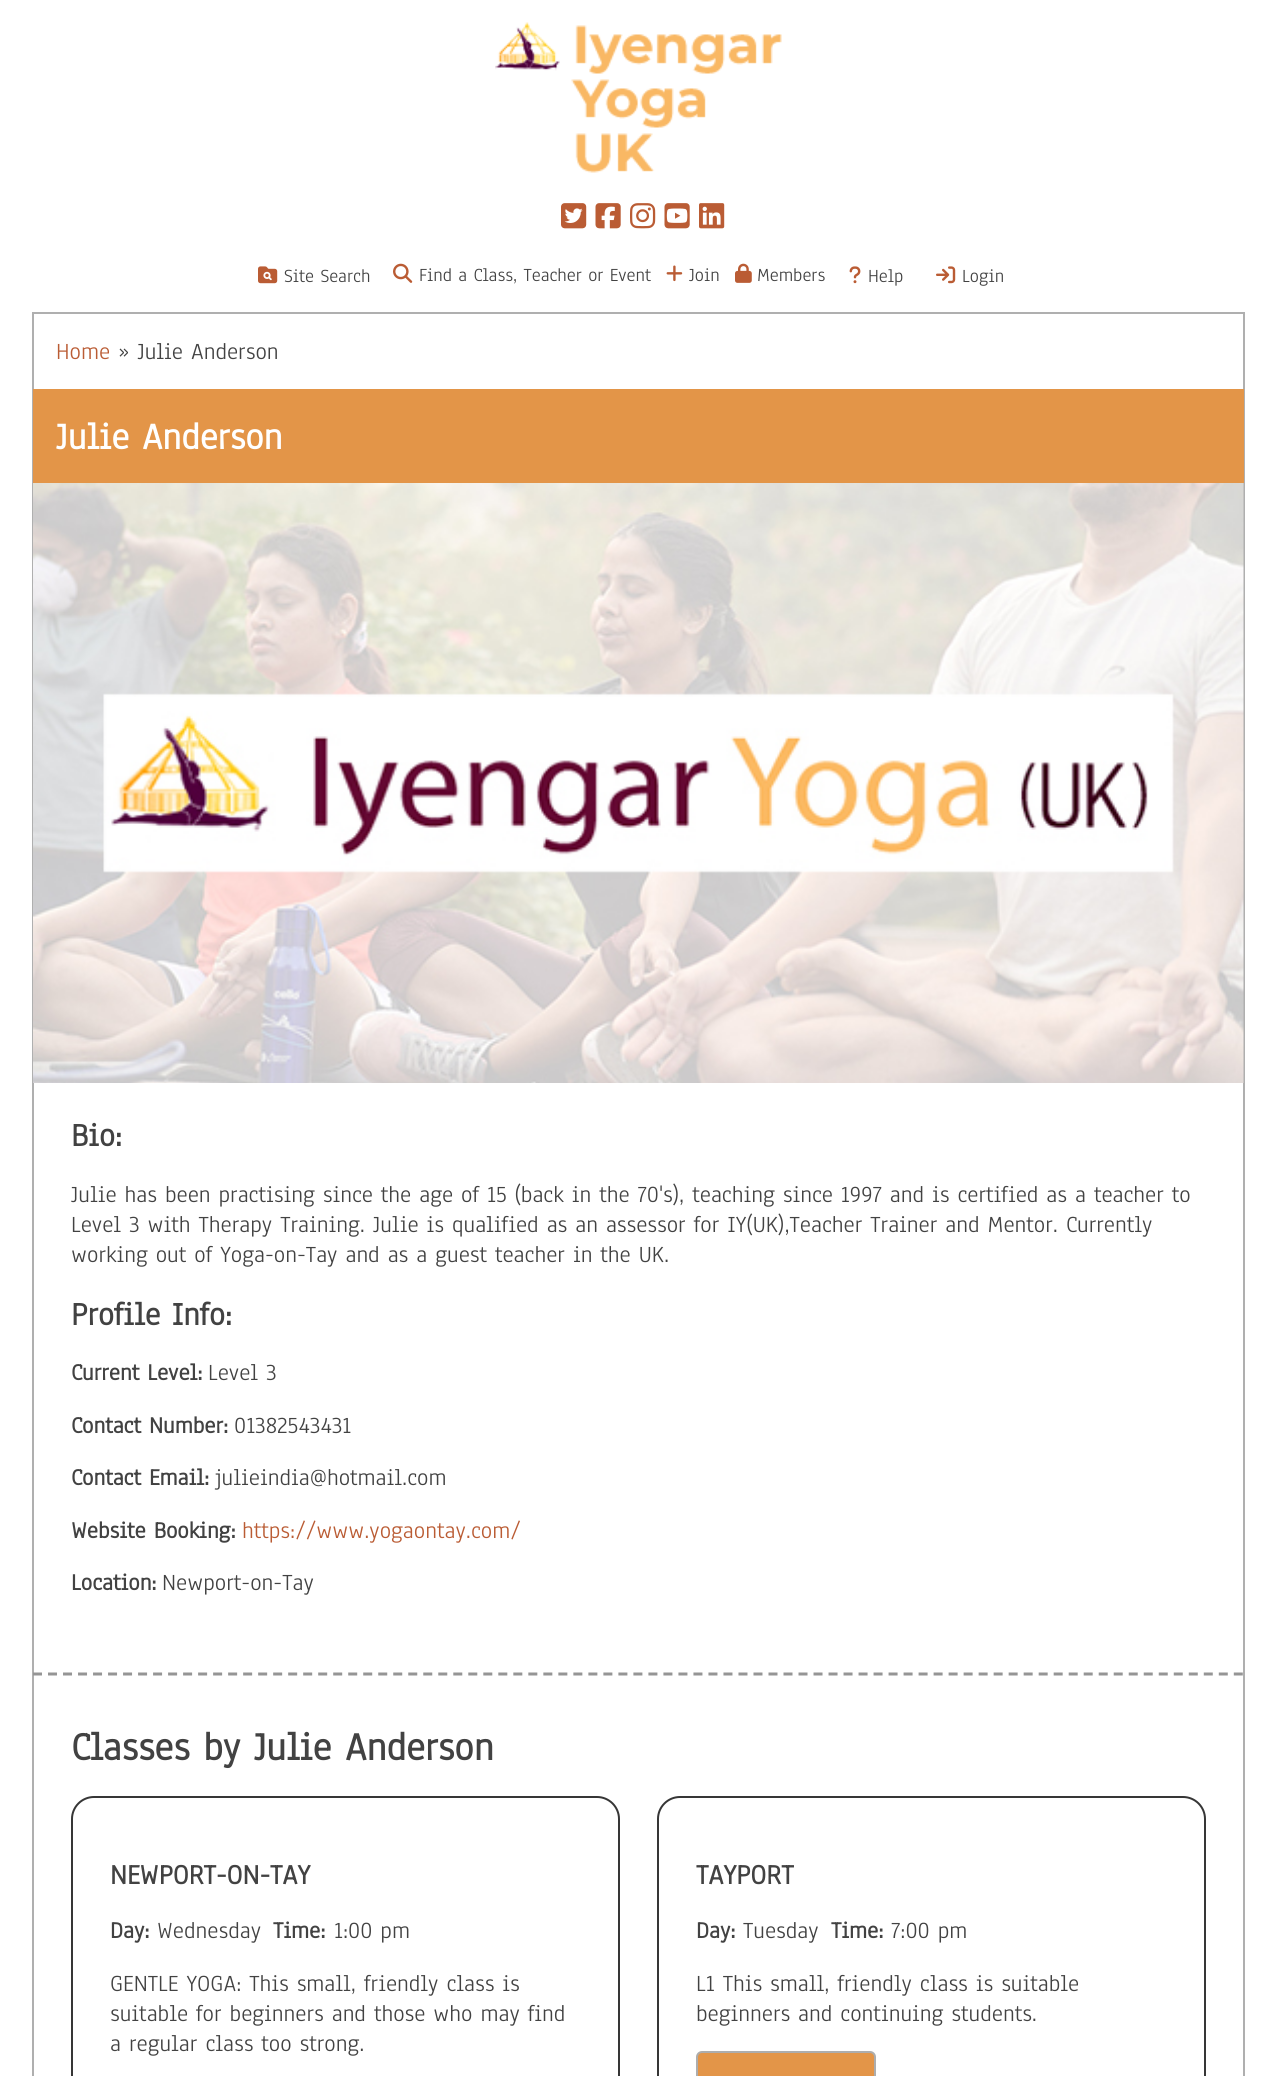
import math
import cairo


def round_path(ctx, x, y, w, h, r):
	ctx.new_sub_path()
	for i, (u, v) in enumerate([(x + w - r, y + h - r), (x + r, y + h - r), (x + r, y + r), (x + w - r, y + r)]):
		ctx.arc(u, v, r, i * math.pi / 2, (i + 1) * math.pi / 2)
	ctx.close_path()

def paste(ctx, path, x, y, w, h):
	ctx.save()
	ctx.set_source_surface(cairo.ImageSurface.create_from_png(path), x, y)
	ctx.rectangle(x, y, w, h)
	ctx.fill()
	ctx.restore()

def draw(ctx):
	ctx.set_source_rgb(1, 1, 1)
	ctx.paint()
	paste(ctx, 'media/1.png', 495, 22, 287, 151)
	paste(ctx, 'media/2.png', 561, 203, 26, 26)
	paste(ctx, 'media/3.png', 595, 203, 26, 26)
	paste(ctx, 'media/4.png', 630, 203, 26, 26)
	paste(ctx, 'media/5.png', 664, 203, 26, 26)
	paste(ctx, 'media/6.png', 699, 203, 26, 26)
	paste(ctx, 'media/7.png', 258, 266, 20, 18)
	ctx.select_font_face('Anaheim')
	ctx.set_font_size(19.25)
	ctx.set_source_rgb(0.259, 0.259, 0.259)
	ctx.move_to(284, 282)
	ctx.show_text('Site Search')
	paste(ctx, 'media/8.png', 393, 263, 20, 20)
	ctx.move_to(419, 281)
	ctx.show_text('Find a Class, Teacher or Event')
	paste(ctx, 'media/9.png', 666, 265, 17, 17)
	ctx.move_to(689, 281)
	ctx.show_text('Join')
	paste(ctx, 'media/10.png', 735, 263, 17, 20)
	ctx.move_to(757, 281)
	ctx.show_text('Members')
	paste(ctx, 'media/11.png', 849, 266, 12, 18)
	ctx.move_to(868, 282)
	ctx.show_text('Help')
	paste(ctx, 'media/12.png', 936, 266, 20, 18)
	ctx.move_to(962, 282)
	ctx.show_text('Login')
	ctx.rectangle(33, 313, 1211, 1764)
	ctx.set_source_rgb(0.686, 0.686, 0.686)
	ctx.stroke()
	ctx.set_font_size(24)
	ctx.set_source_rgb(0.729, 0.361, 0.204)
	ctx.move_to(56, 359)
	ctx.show_text('Home')
	ctx.set_source_rgb(0.259, 0.259, 0.259)
	ctx.move_to(118, 359)
	ctx.show_text('» Julie Anderson')
	ctx.set_source_rgb(0.89, 0.584, 0.282)
	ctx.rectangle(33, 389, 1211, 94)
	ctx.fill()
	ctx.select_font_face('Anaheim', cairo.FONT_SLANT_NORMAL, cairo.FONT_WEIGHT_BOLD)
	ctx.set_font_size(38.5)
	ctx.set_source_rgb(1, 1, 1)
	ctx.move_to(56, 449)
	ctx.show_text('Julie Anderson')
	paste(ctx, 'media/13.png', 33, 483, 1211, 600)
	ctx.set_font_size(33.5)
	ctx.set_source_rgb(0.259, 0.259, 0.259)
	ctx.move_to(71, 1146)
	ctx.show_text('Bio:')
	ctx.select_font_face('Anaheim')
	ctx.set_font_size(24)
	for x, y, s in [
		(71, 1202, 'Julie has been practising since the age of 15 (back in the 70\'s), teaching since 1997 and is certified as a teacher to'),
		(71, 1232, 'Level 3 with Therapy Training. Julie is qualified as an assessor for IY(UK),Teacher Trainer and Mentor. Currently'),
		(71, 1262, 'working out of Yoga-on-Tay and as a guest teacher in the UK.'),
	]:
		ctx.move_to(x, y)
		ctx.show_text(s)
	ctx.select_font_face('Anaheim', cairo.FONT_SLANT_NORMAL, cairo.FONT_WEIGHT_BOLD)
	ctx.set_font_size(33.5)
	ctx.move_to(71, 1325)
	ctx.show_text('Profile Info:')
	ctx.set_font_size(24)
	ctx.move_to(71, 1380)
	ctx.show_text('Current Level:')
	ctx.select_font_face('Anaheim')
	ctx.move_to(208, 1380)
	ctx.show_text('Level 3')
	ctx.select_font_face('Anaheim', cairo.FONT_SLANT_NORMAL, cairo.FONT_WEIGHT_BOLD)
	ctx.move_to(71, 1433)
	ctx.show_text('Contact Number:')
	ctx.select_font_face('Anaheim')
	ctx.move_to(234, 1433)
	ctx.show_text('01382543431')
	ctx.select_font_face('Anaheim', cairo.FONT_SLANT_NORMAL, cairo.FONT_WEIGHT_BOLD)
	ctx.move_to(71, 1485)
	ctx.show_text('Contact Email:')
	ctx.select_font_face('Anaheim')
	ctx.move_to(215, 1485)
	ctx.show_text('julieindia@hotmail.com')
	ctx.select_font_face('Anaheim', cairo.FONT_SLANT_NORMAL, cairo.FONT_WEIGHT_BOLD)
	ctx.move_to(71, 1538)
	ctx.show_text('Website Booking:')
	ctx.select_font_face('Anaheim')
	ctx.set_source_rgb(0.729, 0.361, 0.204)
	ctx.move_to(242, 1538)
	ctx.show_text('https://www.yogaontay.com/')
	ctx.select_font_face('Anaheim', cairo.FONT_SLANT_NORMAL, cairo.FONT_WEIGHT_BOLD)
	ctx.set_source_rgb(0.259, 0.259, 0.259)
	ctx.move_to(71, 1590)
	ctx.show_text('Location:')
	ctx.select_font_face('Anaheim')
	ctx.move_to(162, 1590)
	ctx.show_text('Newport-on-Tay')
	ctx.new_path()
	ctx.move_to(33, 1674)
	ctx.line_to(1243.5, 1674)
	ctx.set_source_rgb(0.584, 0.584, 0.584)
	ctx.set_line_width(3)
	ctx.set_dash([9, 6.01])
	ctx.stroke()
	ctx.select_font_face('Anaheim', cairo.FONT_SLANT_NORMAL, cairo.FONT_WEIGHT_BOLD)
	ctx.set_font_size(40.75)
	ctx.set_source_rgb(0.259, 0.259, 0.259)
	ctx.move_to(71, 1760)
	ctx.show_text('Classes by Julie Anderson')
	round_path(ctx, 72, 1797, 547, 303, 22)
	ctx.set_source_rgb(0.212, 0.212, 0.212)
	ctx.set_line_width(2)
	ctx.set_dash([])
	ctx.stroke()
	ctx.set_font_size(28.75)
	ctx.set_source_rgb(0.259, 0.259, 0.259)
	ctx.move_to(110, 1884)
	ctx.show_text('NEWPORT-ON-TAY')
	ctx.set_font_size(24)
	ctx.move_to(110, 1938)
	ctx.show_text('Day:')
	ctx.select_font_face('Anaheim')
	ctx.move_to(157, 1938)
	ctx.show_text('Wednesday')
	ctx.select_font_face('Anaheim', cairo.FONT_SLANT_NORMAL, cairo.FONT_WEIGHT_BOLD)
	ctx.move_to(273, 1938)
	ctx.show_text('Time:')
	ctx.select_font_face('Anaheim')
	for x, y, s in [
		(334, 1938, '1:00 pm'),
		(110, 1991, 'GENTLE YOGA: This small, friendly class is'),
		(110, 2021, 'suitable for beginners and those who may find'),
		(110, 2051, 'a regular class too strong.'),
	]:
		ctx.move_to(x, y)
		ctx.show_text(s)
	round_path(ctx, 658, 1797, 547, 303, 22)
	ctx.set_source_rgb(0.212, 0.212, 0.212)
	ctx.stroke()
	ctx.select_font_face('Anaheim', cairo.FONT_SLANT_NORMAL, cairo.FONT_WEIGHT_BOLD)
	ctx.set_font_size(28.75)
	ctx.set_source_rgb(0.259, 0.259, 0.259)
	ctx.move_to(696, 1884)
	ctx.show_text('TAYPORT')
	ctx.set_font_size(24)
	ctx.move_to(696, 1938)
	ctx.show_text('Day:')
	ctx.select_font_face('Anaheim')
	ctx.move_to(743, 1938)
	ctx.show_text('Tuesday')
	ctx.select_font_face('Anaheim', cairo.FONT_SLANT_NORMAL, cairo.FONT_WEIGHT_BOLD)
	ctx.move_to(831, 1938)
	ctx.show_text('Time:')
	ctx.select_font_face('Anaheim')
	for x, y, s in [
		(891, 1938, '7:00 pm'),
		(696, 1991, 'L1 This small, friendly class is suitable'),
		(696, 2021, 'beginners and continuing students.'),
	]:
		ctx.move_to(x, y)
		ctx.show_text(s)
	ctx.set_source_rgb(0.89, 0.584, 0.282)
	round_path(ctx, 697, 2052, 178, 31, 5)
	ctx.fill_preserve()
	ctx.set_source_rgb(0.678, 0.678, 0.678)
	ctx.stroke()


surface = cairo.ImageSurface(cairo.FORMAT_RGB24, 1276, 2076)
ctx = cairo.Context(surface)
options = cairo.FontOptions()
options.set_hint_metrics(cairo.HINT_METRICS_OFF)
options.set_hint_style(cairo.HINT_STYLE_NONE)
ctx.set_font_options(options)
ctx.set_miter_limit(4)
draw(ctx)
surface.write_to_png('image.png')
